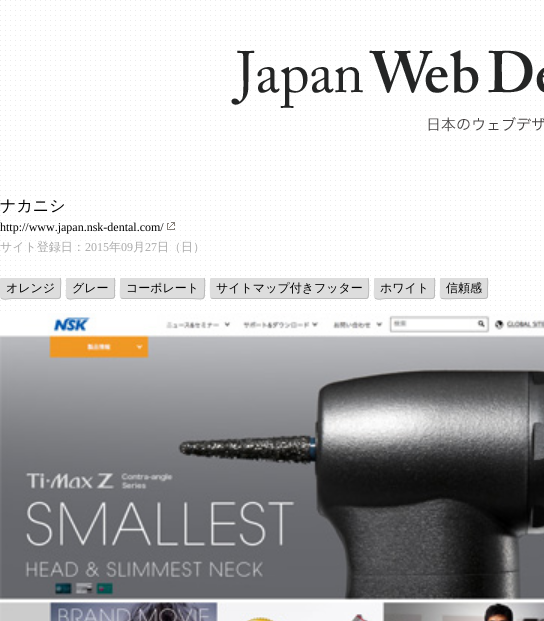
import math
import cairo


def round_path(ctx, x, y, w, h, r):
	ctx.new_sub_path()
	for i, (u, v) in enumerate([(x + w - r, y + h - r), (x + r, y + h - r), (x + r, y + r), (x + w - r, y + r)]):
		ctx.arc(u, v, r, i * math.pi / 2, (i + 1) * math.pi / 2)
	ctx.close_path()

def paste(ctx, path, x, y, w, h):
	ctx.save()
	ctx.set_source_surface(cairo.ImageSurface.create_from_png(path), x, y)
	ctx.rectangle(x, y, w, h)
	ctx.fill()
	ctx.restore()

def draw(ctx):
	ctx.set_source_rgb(1, 1, 1)
	ctx.paint()
	paste(ctx, 'media/1.png', 0, 0, 544, 313)
	paste(ctx, 'media/2.png', 231, 50, 313, 82)
	ctx.select_font_face('WenQuanYi Zen Hei Medium')
	ctx.set_font_size(16)
	ctx.set_source_rgb(0, 0, 0)
	ctx.move_to(0, 211)
	ctx.show_text('ナカニシ')
	ctx.select_font_face('Liberation Serif')
	ctx.set_font_size(12)
	ctx.move_to(0, 231)
	ctx.show_text('http://www.japan.nsk-dental.com/')
	paste(ctx, 'media/3.png', 167, 222, 8, 8)
	ctx.select_font_face('WenQuanYi Zen Hei Medium')
	ctx.set_source_rgb(0.667, 0.667, 0.667)
	ctx.move_to(0, 251)
	ctx.show_text('サイト登録日：')
	ctx.select_font_face('Liberation Serif')
	ctx.move_to(85, 251)
	ctx.show_text('2015')
	ctx.select_font_face('WenQuanYi Zen Hei Medium')
	ctx.move_to(109, 251)
	ctx.show_text('年')
	ctx.select_font_face('Liberation Serif')
	ctx.move_to(121, 251)
	ctx.show_text('09')
	ctx.select_font_face('WenQuanYi Zen Hei Medium')
	ctx.move_to(133, 251)
	ctx.show_text('月')
	ctx.select_font_face('Liberation Serif')
	ctx.move_to(145, 251)
	ctx.show_text('27')
	ctx.select_font_face('WenQuanYi Zen Hei Medium')
	ctx.move_to(157, 251)
	ctx.show_text('日（日）')
	ctx.save()
	ctx.rectangle(0, 278, 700, 25)
	ctx.clip()
	ctx.set_source_rgb(0.867, 0.867, 0.867)
	round_path(ctx, 0, 277, 61, 22, 3)
	ctx.fill()
	ctx.restore()
	ctx.new_path()
	ctx.move_to(60, 278)
	ctx.curve_to(61.5, 280, 60.5, 286, 60.5, 288)
	ctx.curve_to(60.5, 300.5, 62, 298.5, 49, 298.5)
	ctx.line_to(12, 298.5)
	ctx.curve_to(8.5, 298.5, 4, 300.5, 1, 298)
	ctx.set_source_rgb(0.733, 0.733, 0.733)
	ctx.set_line_width(1)
	ctx.stroke()
	ctx.save()
	ctx.rectangle(0, 278, 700, 25)
	ctx.clip()
	ctx.new_path()
	ctx.move_to(1, 298)
	ctx.curve_to(-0.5, 296, 0.5, 290, 0.5, 288)
	ctx.curve_to(0.5, 275.5, -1, 277.5, 12, 277.5)
	ctx.line_to(49, 277.5)
	ctx.curve_to(52.5, 277.5, 57, 275.5, 60, 278)
	ctx.set_source_rgb(0.867, 0.867, 0.867)
	ctx.stroke()
	ctx.restore()
	ctx.set_source_rgb(0, 0, 0)
	ctx.move_to(6, 292)
	ctx.show_text('オレンジ')
	ctx.save()
	ctx.rectangle(0, 278, 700, 25)
	ctx.clip()
	ctx.set_source_rgb(0.867, 0.867, 0.867)
	round_path(ctx, 66, 277, 49, 22, 3)
	ctx.fill()
	ctx.restore()
	ctx.new_path()
	ctx.move_to(114, 278)
	ctx.curve_to(115.5, 280, 114.5, 286, 114.5, 288)
	ctx.curve_to(114.5, 299.5, 116.5, 298.5, 105, 298.5)
	ctx.line_to(76, 298.5)
	ctx.curve_to(73, 298.5, 69.5, 300, 67, 298)
	ctx.set_source_rgb(0.733, 0.733, 0.733)
	ctx.stroke()
	ctx.save()
	ctx.rectangle(0, 278, 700, 25)
	ctx.clip()
	ctx.new_path()
	ctx.move_to(67, 298)
	ctx.curve_to(65.5, 296, 66.5, 290, 66.5, 288)
	ctx.curve_to(66.5, 276.5, 64.5, 277.5, 76, 277.5)
	ctx.line_to(105, 277.5)
	ctx.curve_to(108, 277.5, 111.5, 276, 114, 278)
	ctx.set_source_rgb(0.867, 0.867, 0.867)
	ctx.stroke()
	ctx.restore()
	ctx.set_source_rgb(0, 0, 0)
	ctx.move_to(72, 292)
	ctx.show_text('グレー')
	ctx.save()
	ctx.rectangle(0, 278, 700, 25)
	ctx.clip()
	ctx.set_source_rgb(0.867, 0.867, 0.867)
	round_path(ctx, 120, 277, 85, 22, 3)
	ctx.fill()
	ctx.restore()
	ctx.new_path()
	ctx.move_to(204, 278)
	ctx.curve_to(205.5, 280, 204.5, 288, 204.5, 290.5)
	ctx.curve_to(204.5, 302, 203.5, 298.5, 189, 298.5)
	ctx.line_to(123, 298.5)
	ctx.line_to(121, 298)
	ctx.set_source_rgb(0.733, 0.733, 0.733)
	ctx.stroke()
	ctx.save()
	ctx.rectangle(0, 278, 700, 25)
	ctx.clip()
	ctx.new_path()
	ctx.move_to(121, 298)
	ctx.curve_to(119.5, 296, 120.5, 288, 120.5, 285.5)
	ctx.curve_to(120.5, 274, 121.5, 277.5, 136, 277.5)
	ctx.line_to(202, 277.5)
	ctx.line_to(204, 278)
	ctx.set_source_rgb(0.867, 0.867, 0.867)
	ctx.stroke()
	ctx.restore()
	ctx.set_source_rgb(0, 0, 0)
	ctx.move_to(126, 292)
	ctx.show_text('コーポレート')
	ctx.save()
	ctx.rectangle(0, 278, 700, 25)
	ctx.clip()
	ctx.set_source_rgb(0.867, 0.867, 0.867)
	round_path(ctx, 210, 277, 159, 22, 3)
	ctx.fill()
	ctx.restore()
	ctx.new_path()
	ctx.move_to(368, 278)
	ctx.curve_to(369, 279.5, 369, 296, 368, 297)
	ctx.curve_to(368, 298, 367, 298.5, 366, 298.5)
	ctx.line_to(213, 298.5)
	ctx.line_to(211, 298)
	ctx.set_source_rgb(0.733, 0.733, 0.733)
	ctx.stroke()
	ctx.save()
	ctx.rectangle(0, 278, 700, 25)
	ctx.clip()
	ctx.new_path()
	ctx.move_to(211, 298)
	ctx.curve_to(210, 296.5, 210, 280, 211, 279)
	ctx.curve_to(211, 278, 212, 277.5, 213, 277.5)
	ctx.line_to(366, 277.5)
	ctx.line_to(368, 278)
	ctx.set_source_rgb(0.867, 0.867, 0.867)
	ctx.stroke()
	ctx.restore()
	ctx.set_source_rgb(0, 0, 0)
	ctx.move_to(216, 292)
	ctx.show_text('サイトマップ付きフッター')
	ctx.save()
	ctx.rectangle(0, 278, 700, 25)
	ctx.clip()
	ctx.set_source_rgb(0.867, 0.867, 0.867)
	round_path(ctx, 374, 277, 61, 22, 3)
	ctx.fill()
	ctx.restore()
	ctx.new_path()
	ctx.move_to(434, 278)
	ctx.curve_to(435.5, 280, 434.5, 286, 434.5, 288)
	ctx.curve_to(434.5, 300.5, 436, 298.5, 423, 298.5)
	ctx.line_to(386, 298.5)
	ctx.curve_to(382.5, 298.5, 378, 300.5, 375, 298)
	ctx.set_source_rgb(0.733, 0.733, 0.733)
	ctx.stroke()
	ctx.save()
	ctx.rectangle(0, 278, 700, 25)
	ctx.clip()
	ctx.new_path()
	ctx.move_to(375, 298)
	ctx.curve_to(373.5, 296, 374.5, 290, 374.5, 288)
	ctx.curve_to(374.5, 275.5, 373, 277.5, 386, 277.5)
	ctx.line_to(423, 277.5)
	ctx.curve_to(426.5, 277.5, 431, 275.5, 434, 278)
	ctx.set_source_rgb(0.867, 0.867, 0.867)
	ctx.stroke()
	ctx.restore()
	ctx.set_source_rgb(0, 0, 0)
	ctx.move_to(380, 292)
	ctx.show_text('ホワイト')
	ctx.save()
	ctx.rectangle(0, 278, 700, 25)
	ctx.clip()
	ctx.set_source_rgb(0.867, 0.867, 0.867)
	round_path(ctx, 440, 277, 48, 22, 3)
	ctx.fill()
	ctx.restore()
	ctx.new_path()
	ctx.move_to(487, 278)
	ctx.curve_to(488.5, 280, 487.5, 286, 487.5, 288)
	ctx.curve_to(487.5, 299.5, 489.5, 298.5, 478, 298.5)
	ctx.line_to(457, 298.5)
	ctx.curve_to(454.5, 298.5, 443, 299.5, 441, 298)
	ctx.set_source_rgb(0.733, 0.733, 0.733)
	ctx.stroke()
	ctx.save()
	ctx.rectangle(0, 278, 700, 25)
	ctx.clip()
	ctx.new_path()
	ctx.move_to(441, 298)
	ctx.curve_to(439.5, 296, 440.5, 290, 440.5, 288)
	ctx.curve_to(440.5, 276.5, 438.5, 277.5, 450, 277.5)
	ctx.line_to(471, 277.5)
	ctx.curve_to(473.5, 277.5, 485, 276.5, 487, 278)
	ctx.set_source_rgb(0.867, 0.867, 0.867)
	ctx.stroke()
	ctx.restore()
	ctx.set_source_rgb(0, 0, 0)
	ctx.move_to(446, 292)
	ctx.show_text('信頼感')
	paste(ctx, 'media/4.png', 0, 313, 544, 308)


surface = cairo.ImageSurface(cairo.FORMAT_RGB24, 544, 621)
ctx = cairo.Context(surface)
options = cairo.FontOptions()
options.set_hint_metrics(cairo.HINT_METRICS_OFF)
options.set_hint_style(cairo.HINT_STYLE_NONE)
ctx.set_font_options(options)
ctx.set_miter_limit(4)
draw(ctx)
surface.write_to_png('image.png')
